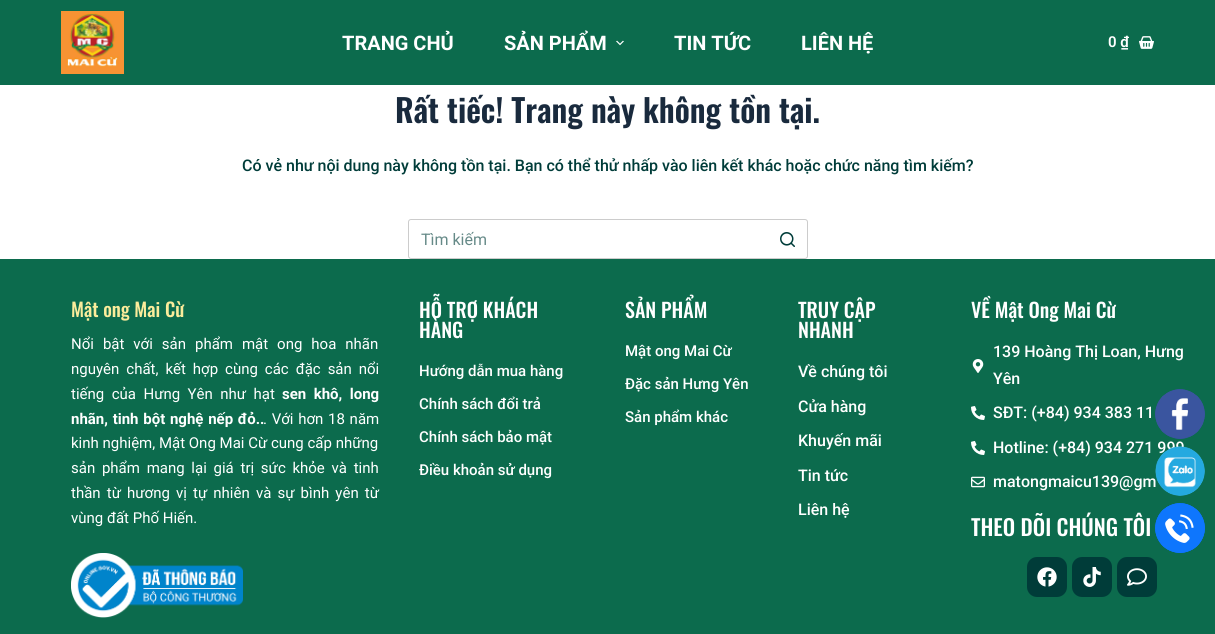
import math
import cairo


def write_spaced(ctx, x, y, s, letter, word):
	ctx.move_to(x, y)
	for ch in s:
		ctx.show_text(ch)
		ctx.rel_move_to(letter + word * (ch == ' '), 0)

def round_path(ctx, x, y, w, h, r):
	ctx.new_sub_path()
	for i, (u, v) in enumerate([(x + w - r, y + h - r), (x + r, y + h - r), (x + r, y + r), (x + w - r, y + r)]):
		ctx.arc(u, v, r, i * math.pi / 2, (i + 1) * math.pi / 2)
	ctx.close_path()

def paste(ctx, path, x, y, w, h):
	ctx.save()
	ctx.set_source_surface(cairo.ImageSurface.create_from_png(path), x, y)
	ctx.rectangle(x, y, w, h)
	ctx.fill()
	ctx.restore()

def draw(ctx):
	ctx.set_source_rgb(1, 1, 1)
	ctx.paint()
	ctx.set_source_rgb(0.047, 0.42, 0.302)
	ctx.rectangle(0, 0, 1215, 85)
	ctx.fill()
	paste(ctx, 'media/1.png', 61, 11, 63, 63)
	ctx.select_font_face('Roboto', cairo.FONT_SLANT_NORMAL, cairo.FONT_WEIGHT_BOLD)
	ctx.set_font_size(20)
	ctx.set_source_rgb(1, 1, 1)
	ctx.move_to(342, 50)
	ctx.show_text('TRANG CHỦ')
	ctx.move_to(504, 50)
	ctx.show_text('SẢN PHẨM')
	paste(ctx, 'media/2.png', 616, 40, 8, 6)
	ctx.move_to(674, 50)
	ctx.show_text('TIN TỨC')
	ctx.move_to(801, 50)
	ctx.show_text('LIÊN HỆ')
	ctx.select_font_face('Roboto SemiBold')
	ctx.set_font_size(15)
	ctx.move_to(1108, 47)
	ctx.show_text('0 ₫')
	paste(ctx, 'media/3.png', 1139, 36, 15, 13)
	ctx.select_font_face('Oswald SemiBold')
	ctx.set_font_size(32)
	ctx.set_source_rgb(0.098, 0.165, 0.239)
	ctx.move_to(395, 123)
	ctx.show_text('Rất tiếc! Trang này không tồn tại.')
	ctx.select_font_face('Roboto Medium')
	ctx.set_font_size(16)
	ctx.set_source_rgb(0, 0.235, 0.224)
	ctx.move_to(242, 171)
	ctx.show_text('Có vẻ như nội dung này không tồn tại. Bạn có thể thử nhấp vào liên kết khác hoặc chức năng tìm kiếm?')
	round_path(ctx, 408.5, 219.5, 399, 39, 2.5)
	ctx.set_source_rgb(0.8, 0.8, 0.8)
	ctx.set_line_width(1)
	ctx.stroke()
	ctx.select_font_face('Roboto')
	ctx.set_source_rgb(0.4, 0.541, 0.533)
	ctx.move_to(421, 245)
	ctx.show_text('Tìm kiếm')
	paste(ctx, 'media/4.png', 780, 232, 15, 15)
	ctx.set_source_rgb(0.047, 0.42, 0.302)
	ctx.rectangle(0, 259, 1215, 375)
	ctx.fill()
	ctx.select_font_face('Oswald Medium')
	ctx.set_font_size(19)
	ctx.set_source_rgb(0.984, 0.925, 0.608)
	ctx.move_to(71, 317)
	ctx.show_text('Mật ong Mai Cừ')
	ctx.select_font_face('Roboto')
	ctx.set_font_size(15)
	ctx.set_source_rgb(1, 1, 1)
	write_spaced(ctx, 71, 349, 'Nổi bật với sản phẩm mật ong hoa nhãn', 0, 5.25)
	write_spaced(ctx, 71, 374, 'nguyên chất, kết hợp cùng các đặc sản nổi', 0, 3.25)
	write_spaced(ctx, 71, 399, 'tiếng của Hưng Yên như hạt', 0, 3.75)
	ctx.select_font_face('Roboto', cairo.FONT_SLANT_NORMAL, cairo.FONT_WEIGHT_BOLD)
	write_spaced(ctx, 282, 399, 'sen khô, long', 0, 3.75)
	write_spaced(ctx, 71, 424, 'nhãn, tinh bột nghệ nếp đỏ..', 0, 1)
	ctx.select_font_face('Roboto')
	write_spaced(ctx, 263, 424, '. Với hơn 18 năm', 0, 1)
	ctx.move_to(71, 448)
	ctx.show_text('kinh nghiệm, Mật Ong Mai Cừ cung cấp những')
	write_spaced(ctx, 71, 473, 'sản phẩm mang lại giá trị sức khỏe và tinh', 0, 3)
	write_spaced(ctx, 71, 498, 'thần từ hương vị tự nhiên và sự bình yên từ', 0, 2.4)
	ctx.move_to(71, 523)
	ctx.show_text('vùng đất Phố Hiến.')
	paste(ctx, 'media/5.png', 71, 553, 172, 65)
	ctx.select_font_face('Oswald Medium')
	ctx.set_font_size(20)
	ctx.move_to(419, 318)
	ctx.show_text('HỖ TRỢ KHÁCH')
	ctx.move_to(419, 338)
	ctx.show_text('HÀNG')
	ctx.select_font_face('Roboto Medium')
	ctx.set_font_size(15)
	for x, y, s in [
		(419, 376, 'Hướng dẫn mua hàng'),
		(419, 409, 'Chính sách đổi trả'),
		(419, 442, 'Chính sách bảo mật'),
		(419, 475, 'Điều khoản sử dụng'),
	]:
		ctx.move_to(x, y)
		ctx.show_text(s)
	ctx.select_font_face('Oswald Medium')
	ctx.set_font_size(20)
	ctx.move_to(625, 318)
	ctx.show_text('SẢN PHẨM')
	ctx.select_font_face('Roboto Medium')
	ctx.set_font_size(15)
	for x, y, s in [
		(625, 356, 'Mật ong Mai Cừ'),
		(625, 389, 'Đặc sản Hưng Yên'),
		(625, 422, 'Sản phẩm khác'),
	]:
		ctx.move_to(x, y)
		ctx.show_text(s)
	ctx.select_font_face('Oswald Medium')
	ctx.set_font_size(20)
	ctx.move_to(798, 318)
	ctx.show_text('TRUY CẬP')
	ctx.move_to(798, 338)
	ctx.show_text('NHANH')
	ctx.select_font_face('Roboto Medium')
	ctx.set_font_size(16)
	for x, y, s in [
		(798, 377, 'Về chúng tôi'),
		(798, 412, 'Cửa hàng'),
		(798, 446, 'Khuyến mãi'),
		(798, 481, 'Tin tức'),
		(798, 515, 'Liên hệ'),
	]:
		ctx.move_to(x, y)
		ctx.show_text(s)
	ctx.select_font_face('Oswald Medium')
	ctx.set_font_size(20)
	ctx.move_to(971, 318)
	ctx.show_text('VỀ Mật Ong Mai Cừ')
	paste(ctx, 'media/6.png', 972, 359, 12, 14)
	ctx.select_font_face('Roboto Medium')
	ctx.set_font_size(16)
	ctx.move_to(993, 357)
	ctx.show_text('139 Hoàng Thị Loan, Hưng')
	ctx.move_to(993, 384)
	ctx.show_text('Yên')
	paste(ctx, 'media/7.png', 971, 406, 14, 14)
	ctx.move_to(993, 418)
	ctx.show_text('SĐT: (+84) 934 383 11')
	paste(ctx, 'media/7.png', 971, 441, 14, 14)
	ctx.move_to(993, 453)
	ctx.show_text('Hotline: (+84) 934 271 999')
	paste(ctx, 'media/8.png', 971, 476, 14, 12)
	ctx.move_to(993, 487)
	ctx.show_text('matongmaicu139@gm')
	ctx.select_font_face('Oswald Medium')
	ctx.set_font_size(22)
	ctx.move_to(971, 536)
	ctx.show_text('THEO DÕI CHÚNG TÔI')
	ctx.set_source_rgb(0, 0.235, 0.224)
	round_path(ctx, 1027, 557, 40, 40, 10)
	ctx.fill()
	paste(ctx, 'media/9.png', 1037, 567, 20, 20)
	round_path(ctx, 1072, 557, 40, 40, 10)
	ctx.fill()
	paste(ctx, 'media/10.png', 1083, 567, 18, 20)
	round_path(ctx, 1117, 557, 40, 40, 10)
	ctx.fill()
	paste(ctx, 'media/11.png', 1127, 568, 20, 18)
	paste(ctx, 'media/12.png', 1155, 389, 50, 50)
	paste(ctx, 'media/13.png', 1155, 446, 50, 50)
	paste(ctx, 'media/14.png', 1155, 503, 50, 50)
	paste(ctx, 'media/15.png', 1155, 503, 50, 50)
	paste(ctx, 'media/16.png', 1155, 389, 50, 50)
	paste(ctx, 'media/17.png', 1155, 446, 50, 50)
	paste(ctx, 'media/18.png', 1155, 503, 50, 50)


surface = cairo.ImageSurface(cairo.FORMAT_RGB24, 1215, 634)
ctx = cairo.Context(surface)
options = cairo.FontOptions()
options.set_hint_metrics(cairo.HINT_METRICS_OFF)
options.set_hint_style(cairo.HINT_STYLE_NONE)
ctx.set_font_options(options)
ctx.set_miter_limit(4)
draw(ctx)
surface.write_to_png('image.png')
